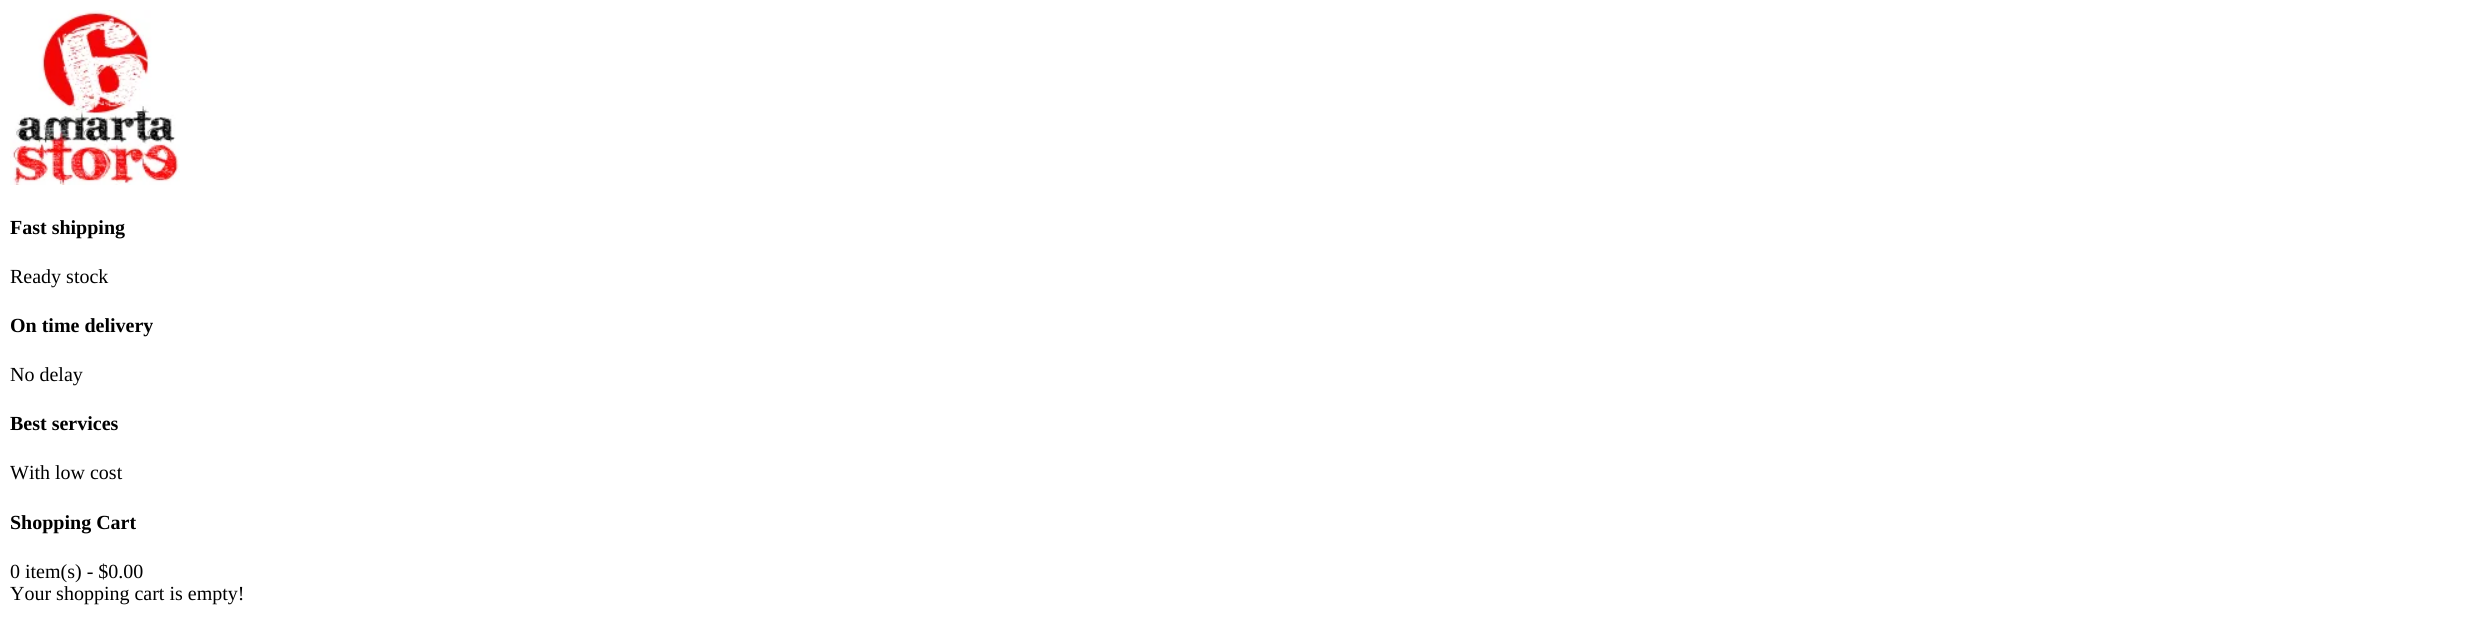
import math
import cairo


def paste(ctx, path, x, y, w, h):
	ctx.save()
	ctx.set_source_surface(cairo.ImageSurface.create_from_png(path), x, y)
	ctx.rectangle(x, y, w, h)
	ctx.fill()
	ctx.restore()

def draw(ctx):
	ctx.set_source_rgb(1, 1, 1)
	ctx.paint()
	paste(ctx, 'media/1.png', 10, 10, 170, 175)
	ctx.select_font_face('Liberation Serif', cairo.FONT_SLANT_NORMAL, cairo.FONT_WEIGHT_BOLD)
	ctx.set_font_size(20)
	ctx.set_source_rgb(0, 0, 0)
	ctx.move_to(10, 234)
	ctx.show_text('Fast shipping')
	ctx.select_font_face('Liberation Serif')
	ctx.move_to(10, 283)
	ctx.show_text('Ready stock')
	ctx.select_font_face('Liberation Serif', cairo.FONT_SLANT_NORMAL, cairo.FONT_WEIGHT_BOLD)
	ctx.move_to(10, 332)
	ctx.show_text('On time delivery')
	ctx.select_font_face('Liberation Serif')
	ctx.move_to(10, 381)
	ctx.show_text('No delay')
	ctx.select_font_face('Liberation Serif', cairo.FONT_SLANT_NORMAL, cairo.FONT_WEIGHT_BOLD)
	ctx.move_to(10, 430)
	ctx.show_text('Best services')
	ctx.select_font_face('Liberation Serif')
	ctx.move_to(10, 479)
	ctx.show_text('With low cost')
	ctx.select_font_face('Liberation Serif', cairo.FONT_SLANT_NORMAL, cairo.FONT_WEIGHT_BOLD)
	ctx.move_to(10, 529)
	ctx.show_text('Shopping Cart')
	ctx.select_font_face('Liberation Serif')
	ctx.move_to(10, 578)
	ctx.show_text('0 item(s) - $0.00')
	ctx.move_to(10, 600)
	ctx.show_text('Your shopping cart is empty!')


surface = cairo.ImageSurface(cairo.FORMAT_RGB24, 2469, 619)
ctx = cairo.Context(surface)
options = cairo.FontOptions()
options.set_hint_metrics(cairo.HINT_METRICS_OFF)
options.set_hint_style(cairo.HINT_STYLE_NONE)
ctx.set_font_options(options)
ctx.set_miter_limit(4)
draw(ctx)
surface.write_to_png('image.png')
